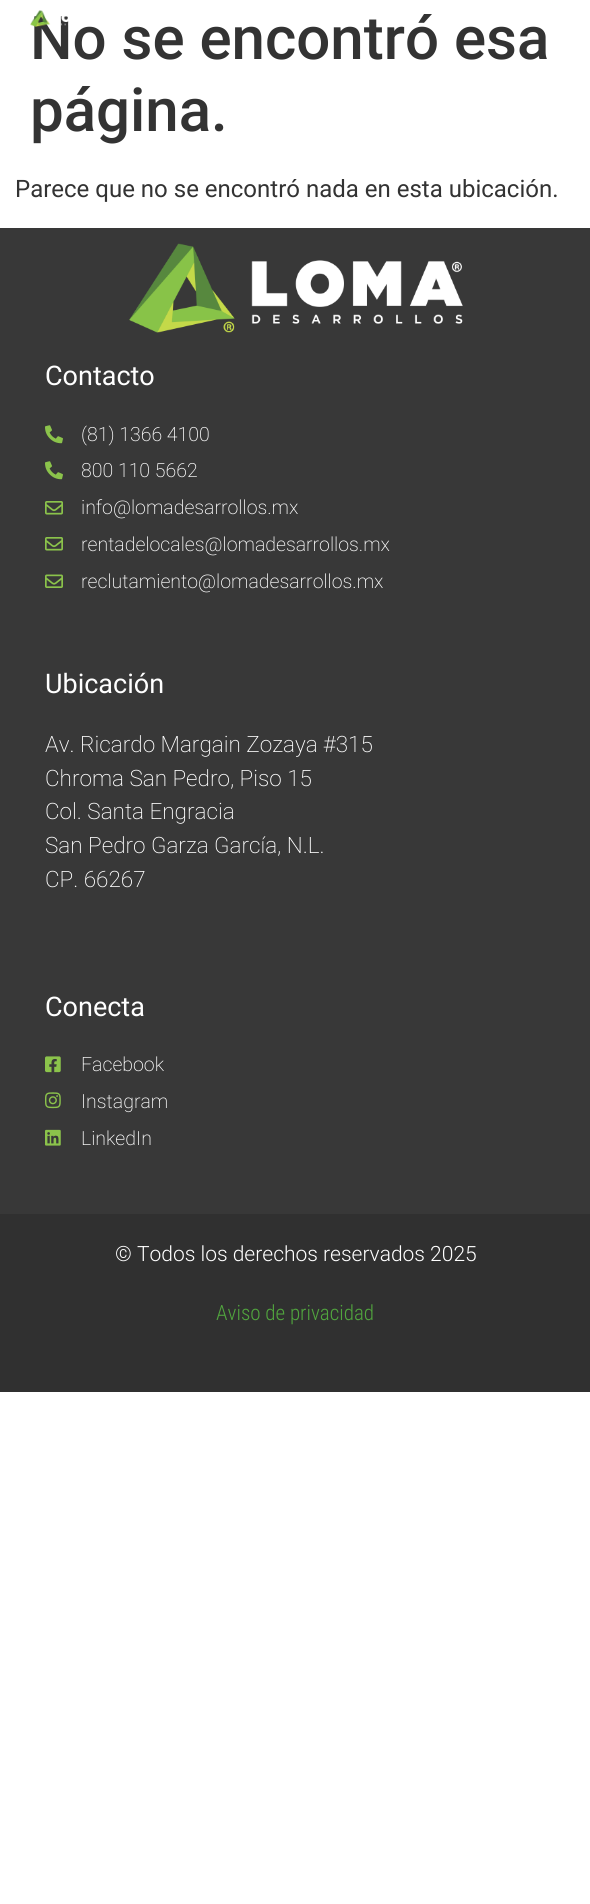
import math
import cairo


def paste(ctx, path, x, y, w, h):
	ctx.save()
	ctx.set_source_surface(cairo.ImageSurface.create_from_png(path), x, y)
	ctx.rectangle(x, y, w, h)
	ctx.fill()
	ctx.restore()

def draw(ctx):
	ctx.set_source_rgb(1, 1, 1)
	ctx.paint()
	ctx.select_font_face('Roboto Medium')
	ctx.set_font_size(60)
	ctx.set_source_rgb(0.2, 0.2, 0.2)
	ctx.move_to(30, 59)
	ctx.show_text('No se encontró esa')
	paste(ctx, 'media/1.png', 30, 10, 39, 17)
	ctx.move_to(30, 131)
	ctx.show_text('página.')
	ctx.select_font_face('Roboto')
	ctx.set_font_size(24)
	ctx.move_to(15, 197)
	ctx.show_text('Parece que no se encontró nada en esta ubicación.')
	ctx.set_source_rgb(0.22, 0.22, 0.22)
	ctx.rectangle(0, 228, 590, 986)
	ctx.fill()
	paste(ctx, 'media/2.png', 129, 243, 334, 90)
	ctx.set_font_size(27)
	ctx.set_source_rgb(1, 1, 1)
	ctx.move_to(45, 385)
	ctx.show_text('Contacto')
	paste(ctx, 'media/3.png', 45, 425, 18, 19)
	ctx.select_font_face('Roboto ExtraLight')
	ctx.set_font_size(19.5)
	ctx.move_to(81, 441)
	ctx.show_text('(81) 1366 4100')
	paste(ctx, 'media/3.png', 45, 461, 18, 19)
	ctx.move_to(81, 477)
	ctx.show_text('800 110 5662')
	paste(ctx, 'media/4.png', 45, 501, 18, 14)
	ctx.move_to(81, 514)
	ctx.show_text('info@lomadesarrollos.mx')
	paste(ctx, 'media/4.png', 45, 537, 18, 14)
	ctx.move_to(81, 551)
	ctx.show_text('rentadelocales@lomadesarrollos.mx')
	paste(ctx, 'media/5.png', 45, 574, 18, 14)
	ctx.move_to(81, 588)
	ctx.show_text('reclutamiento@lomadesarrollos.mx')
	ctx.select_font_face('Roboto')
	ctx.set_font_size(27)
	ctx.move_to(45, 693)
	ctx.show_text('Ubicación')
	ctx.select_font_face('Roboto ExtraLight')
	ctx.set_font_size(22.5)
	for x, y, s in [
		(45, 752, 'Av. Ricardo Margain Zozaya #315'),
		(45, 786, 'Chroma San Pedro, Piso 15'),
		(45, 819, 'Col. Santa Engracia'),
		(45, 853, 'San Pedro Garza García, N.L.'),
		(45, 887, 'CP. 66267'),
	]:
		ctx.move_to(x, y)
		ctx.show_text(s)
	ctx.select_font_face('Roboto')
	ctx.set_font_size(27)
	ctx.move_to(45, 1016)
	ctx.show_text('Conecta')
	paste(ctx, 'media/6.png', 45, 1056, 16, 17)
	ctx.select_font_face('Roboto ExtraLight')
	ctx.set_font_size(19.5)
	ctx.move_to(81, 1071)
	ctx.show_text('Facebook')
	paste(ctx, 'media/7.png', 45, 1092, 16, 17)
	ctx.move_to(81, 1108)
	ctx.show_text('Instagram')
	paste(ctx, 'media/8.png', 45, 1129, 16, 17)
	ctx.move_to(81, 1145)
	ctx.show_text('LinkedIn')
	ctx.set_source_rgb(0.188, 0.188, 0.188)
	ctx.rectangle(0, 1214, 590, 178)
	ctx.fill()
	ctx.select_font_face('Roboto Light')
	ctx.set_font_size(21)
	ctx.set_source_rgb(1, 1, 1)
	ctx.move_to(115, 1261)
	ctx.show_text('© Todos los derechos reservados 2025')
	ctx.select_font_face('Roboto Condensed Light')
	ctx.set_source_rgb(0.318, 0.651, 0.243)
	ctx.move_to(216, 1320)
	ctx.show_text('Aviso de privacidad')


surface = cairo.ImageSurface(cairo.FORMAT_RGB24, 590, 1904)
ctx = cairo.Context(surface)
options = cairo.FontOptions()
options.set_hint_metrics(cairo.HINT_METRICS_OFF)
options.set_hint_style(cairo.HINT_STYLE_NONE)
ctx.set_font_options(options)
ctx.set_miter_limit(4)
draw(ctx)
surface.write_to_png('image.png')
